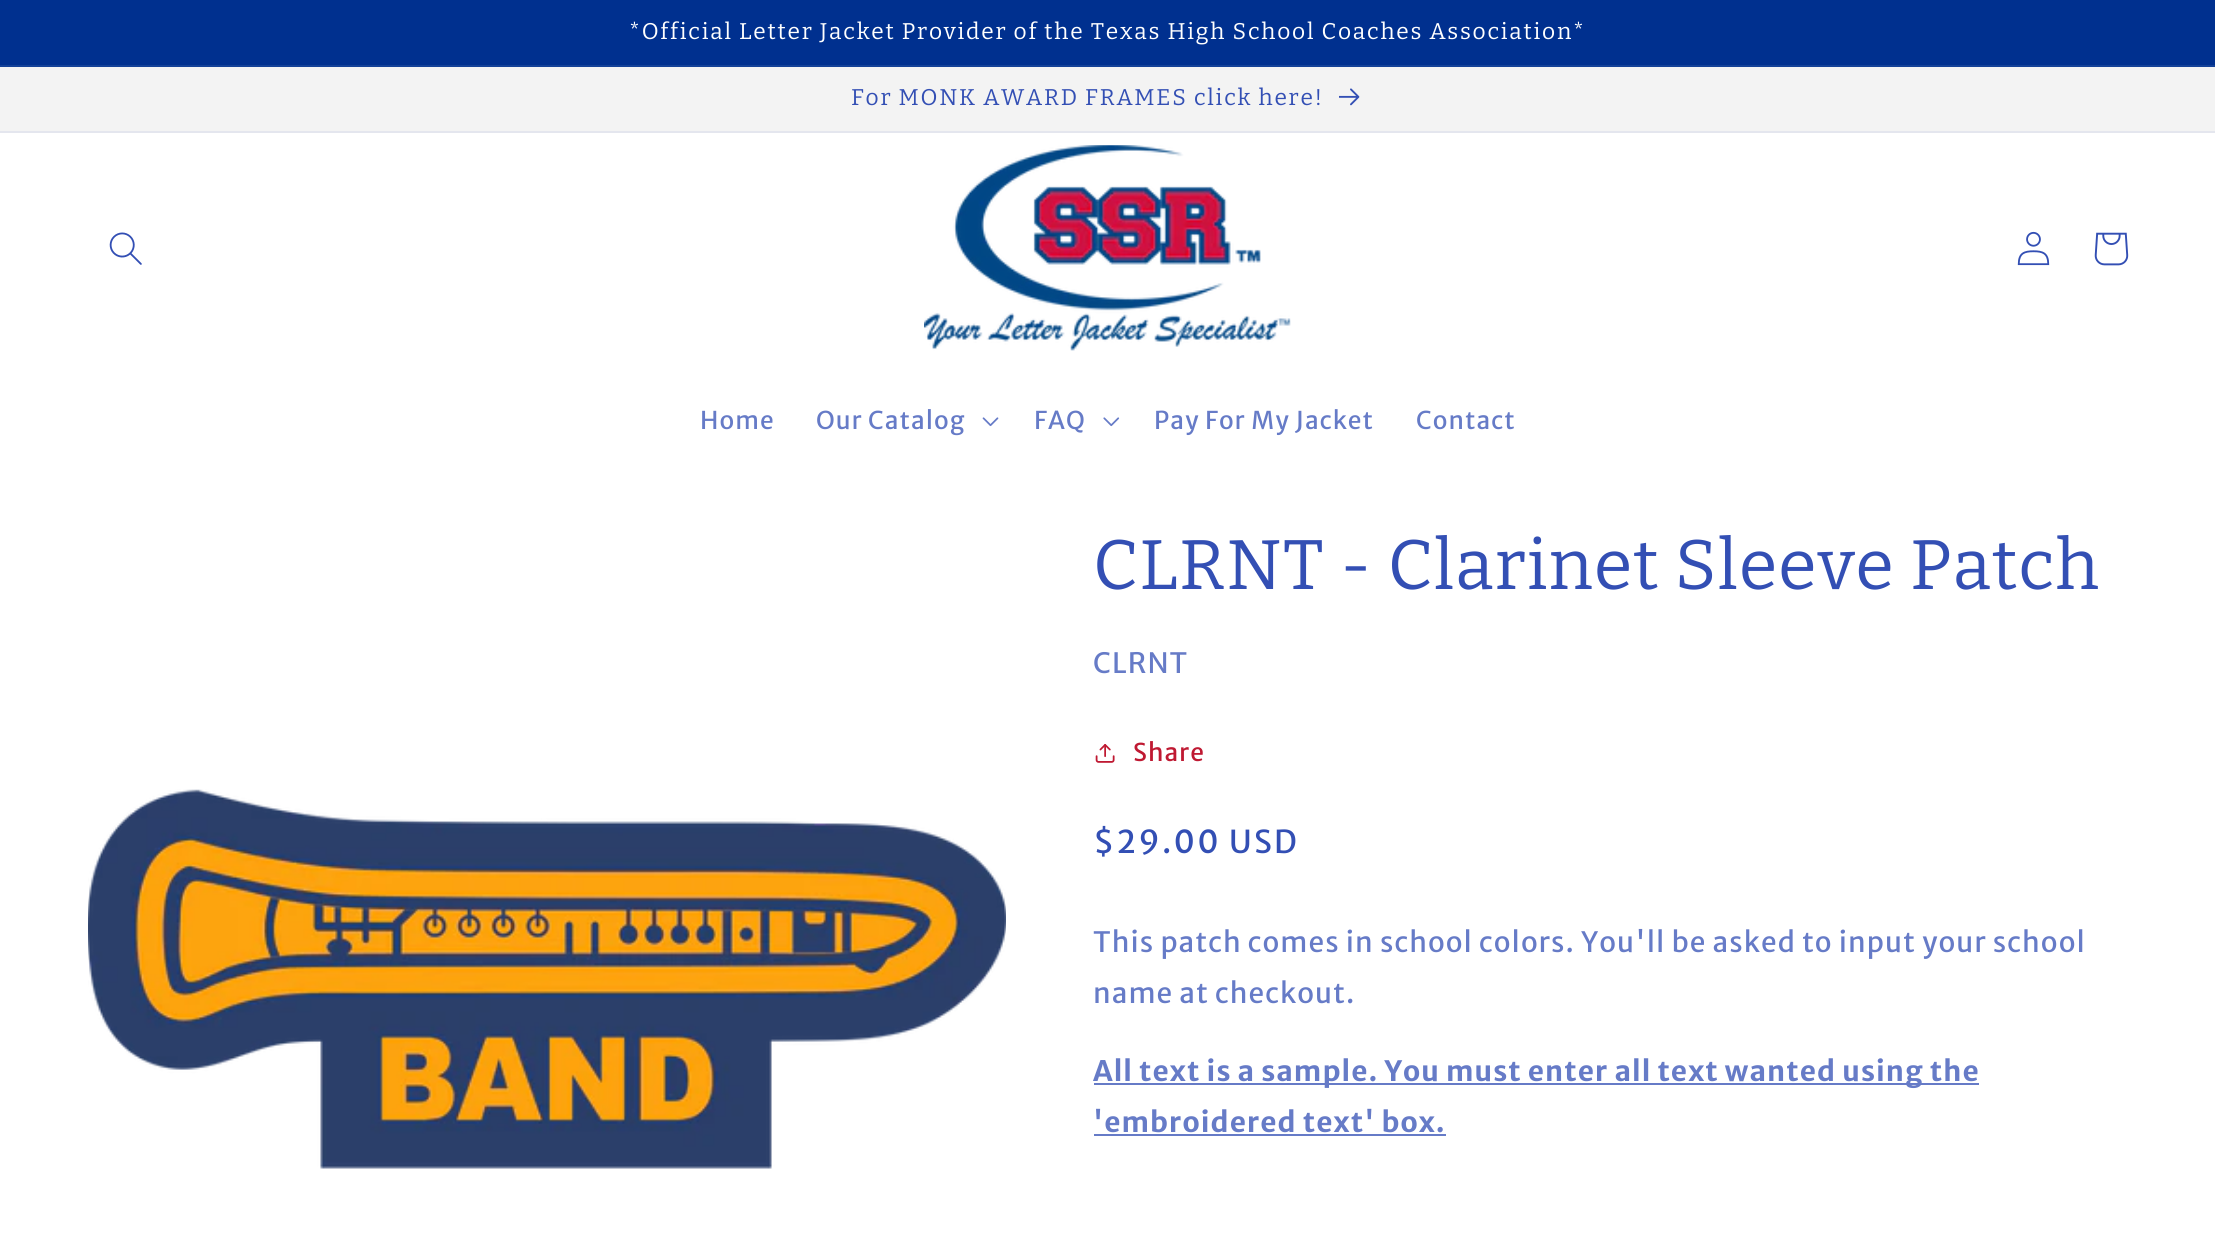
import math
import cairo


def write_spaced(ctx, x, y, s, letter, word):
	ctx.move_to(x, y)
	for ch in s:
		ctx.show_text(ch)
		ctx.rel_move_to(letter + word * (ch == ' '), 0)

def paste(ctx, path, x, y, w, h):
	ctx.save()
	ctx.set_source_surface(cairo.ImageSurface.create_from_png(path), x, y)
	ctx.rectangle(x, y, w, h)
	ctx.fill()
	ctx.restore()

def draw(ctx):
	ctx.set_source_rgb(1, 1, 1)
	ctx.paint()
	ctx.set_source_rgb(0, 0.188, 0.561)
	ctx.rectangle(0, 0, 2215, 65)
	ctx.fill()
	ctx.set_source_rgb(0.078, 0.255, 0.596)
	ctx.rectangle(0, 65, 2215, 2)
	ctx.fill()
	ctx.select_font_face('Bitter')
	ctx.set_font_size(22.75)
	ctx.set_source_rgb(1, 1, 1)
	write_spaced(ctx, 629, 39, '*Official Letter Jacket Provider of the Texas High School Coaches Association*', 1.75, 0)
	ctx.set_source_rgb(0.953, 0.953, 0.953)
	ctx.rectangle(0, 67, 2215, 64)
	ctx.fill()
	ctx.set_source_rgb(0.894, 0.902, 0.933)
	ctx.rectangle(0, 131, 2215, 2)
	ctx.fill()
	ctx.set_source_rgb(0.2, 0.31, 0.706)
	write_spaced(ctx, 851, 105, 'For MONK AWARD FRAMES click here!', 1.75, 0)
	paste(ctx, 'media/1.png', 1339, 88, 21, 18)
	paste(ctx, 'media/2.png', 109, 232, 33, 33)
	paste(ctx, 'media/3.png', 924, 145, 367, 206)
	paste(ctx, 'media/4.png', 2017, 231, 33, 35)
	paste(ctx, 'media/5.png', 2094, 232, 35, 34)
	ctx.select_font_face('Merriweather Sans')
	ctx.set_font_size(24.5)
	ctx.set_source_rgb(0.4, 0.482, 0.78)
	write_spaced(ctx, 700, 429, 'Home', 1.05, 0)
	write_spaced(ctx, 816, 429, 'Our Catalog', 1.05, 0)
	paste(ctx, 'media/6.png', 982, 417, 17, 10)
	write_spaced(ctx, 1034, 429, 'FAQ', 1.05, 0)
	paste(ctx, 'media/7.png', 1103, 417, 17, 10)
	write_spaced(ctx, 1154, 429, 'Pay For My Jacket', 1.05, 0)
	write_spaced(ctx, 1416, 429, 'Contact', 1.05, 0)
	paste(ctx, 'media/8.png', 88, 789, 918, 380)
	ctx.select_font_face('Bitter')
	ctx.set_font_size(70)
	ctx.set_source_rgb(0.2, 0.31, 0.706)
	write_spaced(ctx, 1093, 589, 'CLRNT - Clarinet Sleeve Patch', 1.05, 0)
	ctx.select_font_face('Merriweather Sans')
	ctx.set_font_size(28)
	ctx.set_source_rgb(0.4, 0.482, 0.78)
	write_spaced(ctx, 1093, 673, 'CLRNT', 1.05, 0)
	paste(ctx, 'media/9.png', 1095, 744, 20, 19)
	ctx.set_font_size(24.5)
	ctx.set_source_rgb(0.749, 0.098, 0.196)
	write_spaced(ctx, 1133, 761, 'Share', 1.05, 0)
	ctx.set_font_size(31.5)
	ctx.set_source_rgb(0.2, 0.31, 0.706)
	write_spaced(ctx, 1093, 853, '$29.00 USD', 2.25, 0)
	ctx.set_font_size(28)
	ctx.set_source_rgb(0.4, 0.482, 0.78)
	write_spaced(ctx, 1093, 952, 'This patch comes in school colors. You\'ll be asked to input your school', 1.05, 0)
	write_spaced(ctx, 1093, 1003, 'name at checkout.', 1.05, 0)
	ctx.rectangle(1094, 1083, 885, 2)
	ctx.fill()
	ctx.select_font_face('Merriweather Sans', cairo.FONT_SLANT_NORMAL, cairo.FONT_WEIGHT_BOLD)
	write_spaced(ctx, 1093, 1081, 'All text is a sample. You must enter all text wanted using the', 1.05, 0)
	write_spaced(ctx, 1093, 1132, '\'embroidered text\' box.', 1.05, 0)
	ctx.rectangle(1094, 1134, 352, 2)
	ctx.fill()


surface = cairo.ImageSurface(cairo.FORMAT_RGB24, 2215, 1249)
ctx = cairo.Context(surface)
options = cairo.FontOptions()
options.set_hint_metrics(cairo.HINT_METRICS_OFF)
options.set_hint_style(cairo.HINT_STYLE_NONE)
ctx.set_font_options(options)
ctx.set_miter_limit(4)
draw(ctx)
surface.write_to_png('image.png')
